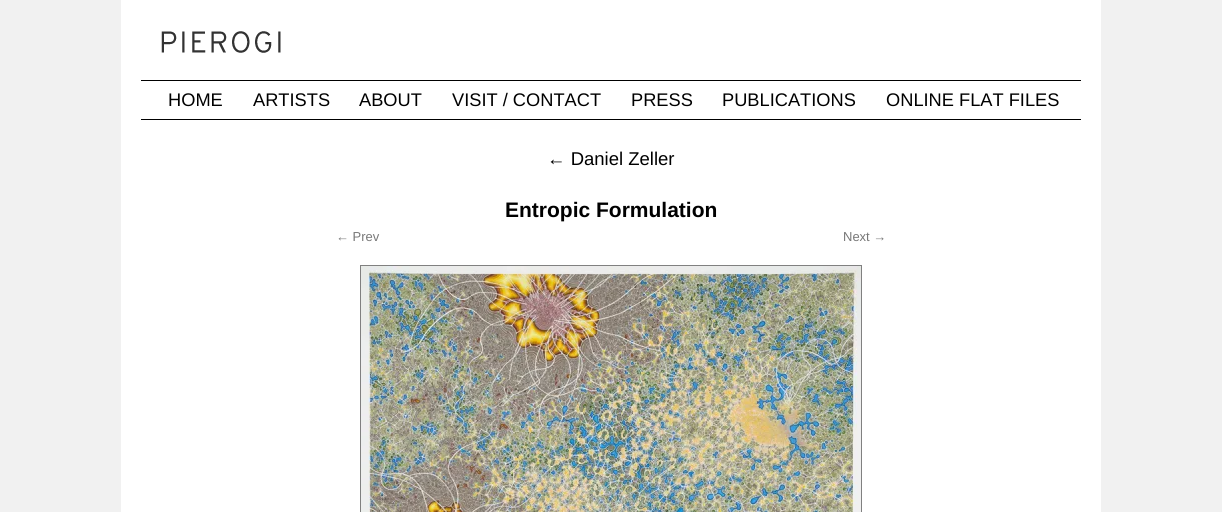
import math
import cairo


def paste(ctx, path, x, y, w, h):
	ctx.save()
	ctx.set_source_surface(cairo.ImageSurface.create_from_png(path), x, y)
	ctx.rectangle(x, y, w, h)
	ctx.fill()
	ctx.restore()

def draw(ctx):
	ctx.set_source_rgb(0.945, 0.945, 0.945)
	ctx.paint()
	ctx.set_source_rgb(1, 1, 1)
	ctx.rectangle(121, 0, 980, 512)
	ctx.fill()
	paste(ctx, 'media/1.png', 161, 31, 120, 22)
	ctx.set_source_rgb(0, 0, 0)
	ctx.rectangle(141, 80, 940, 1)
	ctx.fill()
	ctx.rectangle(141, 119, 940, 1)
	ctx.fill()
	ctx.select_font_face('Liberation Sans')
	ctx.set_font_size(18.25)
	for x, y, s in [
		(168, 106, 'HOME'),
		(253, 106, 'ARTISTS'),
		(359, 106, 'ABOUT'),
		(452, 106, 'VISIT / CONTACT'),
		(631, 106, 'PRESS'),
		(722, 106, 'PUBLICATIONS'),
		(886, 106, 'ONLINE FLAT FILES'),
	]:
		ctx.move_to(x, y)
		ctx.show_text(s)
	ctx.set_font_size(18.5)
	ctx.move_to(547, 165)
	ctx.show_text('← Daniel Zeller')
	ctx.select_font_face('Liberation Sans', cairo.FONT_SLANT_NORMAL, cairo.FONT_WEIGHT_BOLD)
	ctx.set_font_size(21)
	ctx.move_to(505, 217)
	ctx.show_text('Entropic Formulation')
	ctx.select_font_face('Liberation Sans')
	ctx.set_font_size(13)
	ctx.set_source_rgb(0.467, 0.467, 0.467)
	ctx.move_to(336, 241)
	ctx.show_text('← Prev')
	ctx.move_to(843, 241)
	ctx.show_text('Next →')
	ctx.rectangle(360.5, 265.5, 501, 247)
	ctx.set_source_rgb(0.502, 0.502, 0.502)
	ctx.set_line_width(1)
	ctx.stroke()
	paste(ctx, 'media/2.png', 361, 266, 500, 246)


surface = cairo.ImageSurface(cairo.FORMAT_RGB24, 1222, 512)
ctx = cairo.Context(surface)
options = cairo.FontOptions()
options.set_hint_metrics(cairo.HINT_METRICS_OFF)
options.set_hint_style(cairo.HINT_STYLE_NONE)
ctx.set_font_options(options)
ctx.set_miter_limit(4)
draw(ctx)
surface.write_to_png('image.png')
